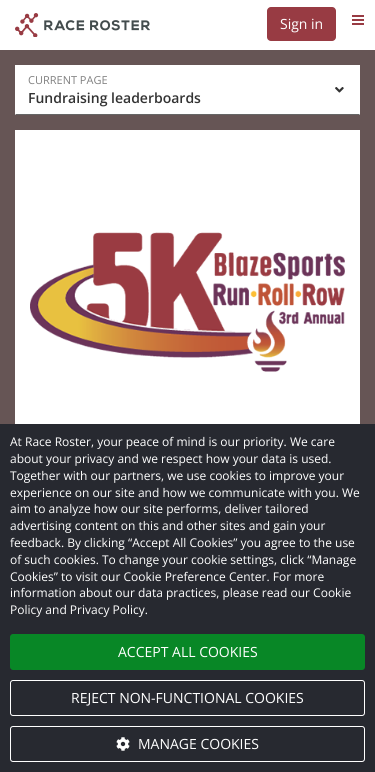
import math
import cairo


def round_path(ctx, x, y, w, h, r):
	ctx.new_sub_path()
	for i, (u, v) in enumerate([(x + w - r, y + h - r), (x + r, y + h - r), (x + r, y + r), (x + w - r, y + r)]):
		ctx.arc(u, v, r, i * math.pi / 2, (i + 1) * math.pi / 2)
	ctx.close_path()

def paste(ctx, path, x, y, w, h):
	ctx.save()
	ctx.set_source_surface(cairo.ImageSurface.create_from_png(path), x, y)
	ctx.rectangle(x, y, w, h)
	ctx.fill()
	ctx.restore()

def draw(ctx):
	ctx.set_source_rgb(0.4, 0.333, 0.333)
	ctx.paint()
	ctx.set_source_rgb(1, 1, 1)
	ctx.rectangle(0, 0, 375, 50)
	ctx.fill()
	paste(ctx, 'media/1.png', 15, 13, 135, 24)
	ctx.set_source_rgb(0.596, 0.231, 0.263)
	round_path(ctx, 267, 7, 69, 34, 4)
	ctx.fill()
	ctx.select_font_face('Open Sans')
	ctx.set_font_size(14)
	ctx.set_source_rgb(1, 1, 1)
	ctx.move_to(280, 29)
	ctx.show_text('Sign in')
	ctx.set_source_rgb(0.596, 0.231, 0.263)
	ctx.rectangle(352, 15, 12, 2)
	ctx.rectangle(352, 19, 12, 2)
	ctx.rectangle(352, 23, 12, 2)
	ctx.fill()
	ctx.set_source_rgb(1, 1, 1)
	ctx.rectangle(15, 65, 345, 50)
	ctx.fill()
	ctx.set_source_rgb(0.4, 0.4, 0.4)
	ctx.new_path()
	ctx.move_to(360, 115)
	ctx.line_to(15, 115)
	ctx.line_to(16, 114)
	ctx.line_to(359, 114)
	ctx.close_path()
	ctx.fill()
	ctx.set_font_size(11)
	ctx.set_source_rgb(0.502, 0.502, 0.502)
	ctx.move_to(28, 84)
	ctx.show_text('CURRENT PAGE')
	paste(ctx, 'media/2.png', 335, 87, 9, 6)
	ctx.select_font_face('Open Sans SemiBold')
	ctx.set_font_size(14)
	ctx.set_source_rgb(0.2, 0.2, 0.2)
	ctx.move_to(28, 103)
	ctx.show_text('Fundraising leaderboards')
	ctx.set_source_rgb(1, 1, 1)
	ctx.rectangle(15, 130, 345, 294)
	ctx.fill()
	paste(ctx, 'media/3.png', 30, 232, 315, 140)
	ctx.set_source_rgb(0.153, 0.161, 0.188)
	ctx.rectangle(0, 424, 375, 348)
	ctx.fill()
	ctx.select_font_face('Open Sans')
	ctx.set_font_size(12)
	ctx.set_source_rgb(1, 1, 1)
	for x, y, s in [
		(10, 446, 'At Race Roster, your peace of mind is our priority. We care'),
		(10, 463, 'about your privacy and we respect how your data is used.'),
		(10, 480, 'Together with our partners, we use cookies to improve your'),
		(10, 497, 'experience on our site and how we communicate with you. We'),
		(10, 513, 'aim to analyze how our site performs, deliver tailored'),
		(10, 530, 'advertising content on this and other sites and gain your'),
		(10, 547, 'feedback. By clicking “Accept All Cookies” you agree to the use'),
		(10, 564, 'of such cookies. To change your cookie settings, click “Manage'),
		(10, 581, 'Cookies” to visit our Cookie Preference Center. For more'),
		(10, 597, 'information about our data practices, please read our Cookie'),
		(10, 614, 'Policy and Privacy Policy.'),
	]:
		ctx.move_to(x, y)
		ctx.show_text(s)
	ctx.set_source_rgb(0.035, 0.529, 0.149)
	round_path(ctx, 10, 634, 355, 36, 3)
	ctx.fill()
	ctx.set_font_size(14)
	ctx.set_source_rgb(1, 1, 1)
	ctx.move_to(118, 657)
	ctx.show_text('ACCEPT ALL COOKIES')
	round_path(ctx, 10.5, 680.5, 354, 35, 2.5)
	ctx.set_line_width(1)
	ctx.stroke()
	ctx.move_to(71, 703)
	ctx.show_text('REJECT NON-FUNCTIONAL COOKIES')
	round_path(ctx, 10.5, 726.5, 354, 35, 2.5)
	ctx.stroke()
	paste(ctx, 'media/4.png', 116, 737, 14, 14)
	ctx.move_to(138, 749)
	ctx.show_text('MANAGE COOKIES')


surface = cairo.ImageSurface(cairo.FORMAT_RGB24, 375, 772)
ctx = cairo.Context(surface)
options = cairo.FontOptions()
options.set_hint_metrics(cairo.HINT_METRICS_OFF)
options.set_hint_style(cairo.HINT_STYLE_NONE)
ctx.set_font_options(options)
ctx.set_miter_limit(4)
draw(ctx)
surface.write_to_png('image.png')
